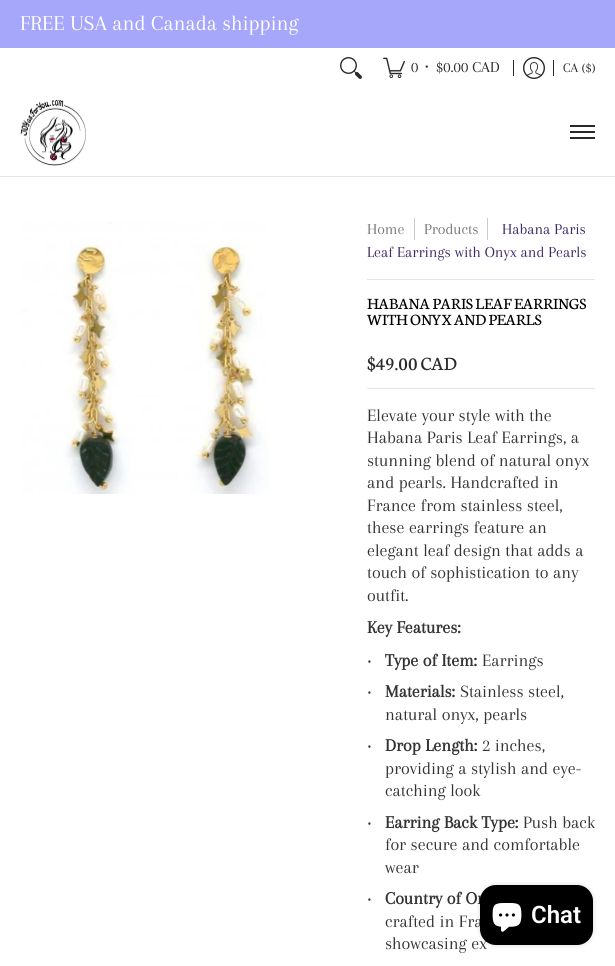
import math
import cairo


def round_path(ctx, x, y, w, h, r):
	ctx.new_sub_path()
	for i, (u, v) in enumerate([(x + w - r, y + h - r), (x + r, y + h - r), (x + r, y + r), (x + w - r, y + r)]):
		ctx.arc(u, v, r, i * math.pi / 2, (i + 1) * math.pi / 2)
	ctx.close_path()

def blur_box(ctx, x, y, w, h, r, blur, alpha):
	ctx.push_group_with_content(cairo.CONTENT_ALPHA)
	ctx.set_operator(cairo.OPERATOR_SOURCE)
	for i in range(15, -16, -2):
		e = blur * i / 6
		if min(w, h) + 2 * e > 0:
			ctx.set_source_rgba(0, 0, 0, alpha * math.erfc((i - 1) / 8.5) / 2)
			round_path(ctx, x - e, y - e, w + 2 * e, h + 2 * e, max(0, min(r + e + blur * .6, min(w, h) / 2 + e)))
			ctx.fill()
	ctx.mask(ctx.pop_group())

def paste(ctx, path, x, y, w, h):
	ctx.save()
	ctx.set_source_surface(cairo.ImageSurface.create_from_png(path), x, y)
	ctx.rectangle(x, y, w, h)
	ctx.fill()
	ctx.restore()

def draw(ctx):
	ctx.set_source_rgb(1, 1, 1)
	ctx.paint()
	ctx.set_source_rgb(0.651, 0.651, 0.98)
	ctx.rectangle(0, 0, 615, 48)
	ctx.fill()
	ctx.select_font_face('Arapey')
	ctx.set_font_size(22)
	ctx.set_source_rgb(1, 1, 1)
	ctx.move_to(20, 30)
	ctx.show_text('FREE USA and Canada shipping')
	paste(ctx, 'media/1.png', 340, 57, 22, 22)
	paste(ctx, 'media/2.png', 383, 57, 22, 22)
	ctx.set_font_size(15.75)
	ctx.set_source_rgb(0.161, 0.161, 0.161)
	for x, y, s in [
		(411, 72, '0'),
		(425, 71, '•'),
		(436, 72, '$0.00 CAD'),
	]:
		ctx.move_to(x, y)
		ctx.show_text(s)
	ctx.rectangle(513, 60, 1, 16)
	ctx.fill()
	paste(ctx, 'media/3.png', 523, 57, 22, 22)
	ctx.rectangle(553, 60, 1, 16)
	ctx.fill()
	ctx.set_font_size(13.5)
	ctx.move_to(563, 72)
	ctx.show_text('CA ($)')
	ctx.set_source_rgb(0.894, 0.894, 0.894)
	ctx.rectangle(0, 176, 615, 1)
	ctx.fill()
	paste(ctx, 'media/4.png', 20, 100, 66, 66)
	ctx.set_source_rgb(0.161, 0.161, 0.161)
	ctx.rectangle(570, 125, 25, 2)
	ctx.rectangle(570, 137, 25, 2)
	ctx.rectangle(570, 131, 25, 2)
	ctx.fill()
	paste(ctx, 'media/5.png', 20, 221, 249, 273)
	ctx.set_source_rgb(0.894, 0.894, 0.894)
	ctx.rectangle(367, 279, 228, 1)
	ctx.fill()
	ctx.set_font_size(15.75)
	ctx.set_source_rgb(0.463, 0.463, 0.463)
	ctx.move_to(367, 234)
	ctx.show_text('Home')
	ctx.set_source_rgb(0.796, 0.796, 0.796)
	ctx.rectangle(414, 218, 1, 22)
	ctx.fill()
	ctx.set_source_rgb(0.463, 0.463, 0.463)
	ctx.move_to(424, 234)
	ctx.show_text('Products')
	ctx.set_source_rgb(0.796, 0.796, 0.796)
	ctx.rectangle(487, 218, 1, 22)
	ctx.fill()
	ctx.set_source_rgb(0.231, 0.157, 0.392)
	ctx.move_to(502, 234)
	ctx.show_text('Habana Paris')
	ctx.move_to(367, 257)
	ctx.show_text('Leaf Earrings with Onyx and Pearls')
	ctx.select_font_face('Neuton')
	ctx.set_font_size(16.7)
	ctx.set_source_rgb(0, 0, 0)
	ctx.move_to(367, 309)
	ctx.show_text('HABANA PARIS LEAF EARRINGS')
	ctx.move_to(367, 325)
	ctx.show_text('WITH ONYX AND PEARLS')
	ctx.set_font_size(20)
	ctx.set_source_rgb(0.161, 0.161, 0.161)
	ctx.move_to(367, 370)
	ctx.show_text('$49.00 CAD')
	ctx.set_source_rgb(0.894, 0.894, 0.894)
	ctx.rectangle(367, 388, 228, 1)
	ctx.fill()
	ctx.select_font_face('Arapey')
	ctx.set_font_size(18)
	ctx.set_source_rgb(0.2, 0.2, 0.2)
	for x, y, s in [
		(367, 421, 'Elevate your style with the'),
		(367, 443, 'Habana Paris Leaf Earrings, a'),
		(367, 466, 'stunning blend of natural onyx'),
		(367, 488, 'and pearls. Handcrafted in'),
		(367, 511, 'France from stainless steel,'),
		(367, 533, 'these earrings feature an'),
		(367, 556, 'elegant leaf design that adds a'),
		(367, 578, 'touch of sophistication to any'),
		(367, 601, 'outfit.'),
	]:
		ctx.move_to(x, y)
		ctx.show_text(s)
	ctx.select_font_face('Arapey', cairo.FONT_SLANT_NORMAL, cairo.FONT_WEIGHT_BOLD)
	ctx.move_to(367, 633)
	ctx.show_text('Key Features:')
	ctx.select_font_face('Noto Sans')
	ctx.move_to(367, 666)
	ctx.show_text('‧')
	ctx.select_font_face('Arapey', cairo.FONT_SLANT_NORMAL, cairo.FONT_WEIGHT_BOLD)
	ctx.move_to(385, 666)
	ctx.show_text('Type of Item:')
	ctx.select_font_face('Arapey')
	ctx.move_to(482, 666)
	ctx.show_text('Earrings')
	ctx.select_font_face('Noto Sans')
	ctx.move_to(367, 697)
	ctx.show_text('‧')
	ctx.select_font_face('Arapey', cairo.FONT_SLANT_NORMAL, cairo.FONT_WEIGHT_BOLD)
	ctx.move_to(385, 697)
	ctx.show_text('Materials:')
	ctx.select_font_face('Arapey')
	ctx.move_to(460, 697)
	ctx.show_text('Stainless steel,')
	ctx.move_to(385, 720)
	ctx.show_text('natural onyx, pearls')
	ctx.select_font_face('Noto Sans')
	ctx.move_to(367, 751)
	ctx.show_text('‧')
	ctx.select_font_face('Arapey', cairo.FONT_SLANT_NORMAL, cairo.FONT_WEIGHT_BOLD)
	ctx.move_to(385, 751)
	ctx.show_text('Drop Length:')
	ctx.select_font_face('Arapey')
	for x, y, s in [
		(482, 751, '2 inches,'),
		(385, 774, 'providing a stylish and eye-'),
		(385, 796, 'catching look'),
	]:
		ctx.move_to(x, y)
		ctx.show_text(s)
	ctx.select_font_face('Noto Sans')
	ctx.move_to(367, 828)
	ctx.show_text('‧')
	ctx.select_font_face('Arapey', cairo.FONT_SLANT_NORMAL, cairo.FONT_WEIGHT_BOLD)
	ctx.move_to(385, 828)
	ctx.show_text('Earring Back Type:')
	ctx.select_font_face('Arapey')
	for x, y, s in [
		(523, 828, 'Push back'),
		(385, 850, 'for secure and comfortable'),
		(385, 873, 'wear'),
	]:
		ctx.move_to(x, y)
		ctx.show_text(s)
	ctx.select_font_face('Noto Sans')
	ctx.move_to(367, 904)
	ctx.show_text('‧')
	ctx.select_font_face('Arapey', cairo.FONT_SLANT_NORMAL, cairo.FONT_WEIGHT_BOLD)
	ctx.move_to(385, 904)
	ctx.show_text('Country of Or')
	ctx.select_font_face('Arapey')
	ctx.move_to(385, 927)
	ctx.show_text('crafted in Fra')
	ctx.move_to(385, 949)
	ctx.show_text('showcasing ex')
	ctx.set_source_rgb(0, 0, 0)
	blur_box(ctx, 480, 885, 113, 60, 16, 2.5, 0.15)
	ctx.set_source_rgb(0, 0, 0)
	round_path(ctx, 480, 885, 113, 60, 16)
	ctx.fill()
	paste(ctx, 'media/6.png', 492, 903, 30, 29)
	ctx.select_font_face('Roboto SemiBold')
	ctx.set_font_size(24)
	ctx.set_source_rgb(1, 1, 1)
	ctx.move_to(531, 923)
	ctx.show_text('Chat')


surface = cairo.ImageSurface(cairo.FORMAT_RGB24, 615, 966)
ctx = cairo.Context(surface)
options = cairo.FontOptions()
options.set_hint_metrics(cairo.HINT_METRICS_OFF)
options.set_hint_style(cairo.HINT_STYLE_NONE)
ctx.set_font_options(options)
ctx.set_miter_limit(4)
draw(ctx)
surface.write_to_png('image.png')
